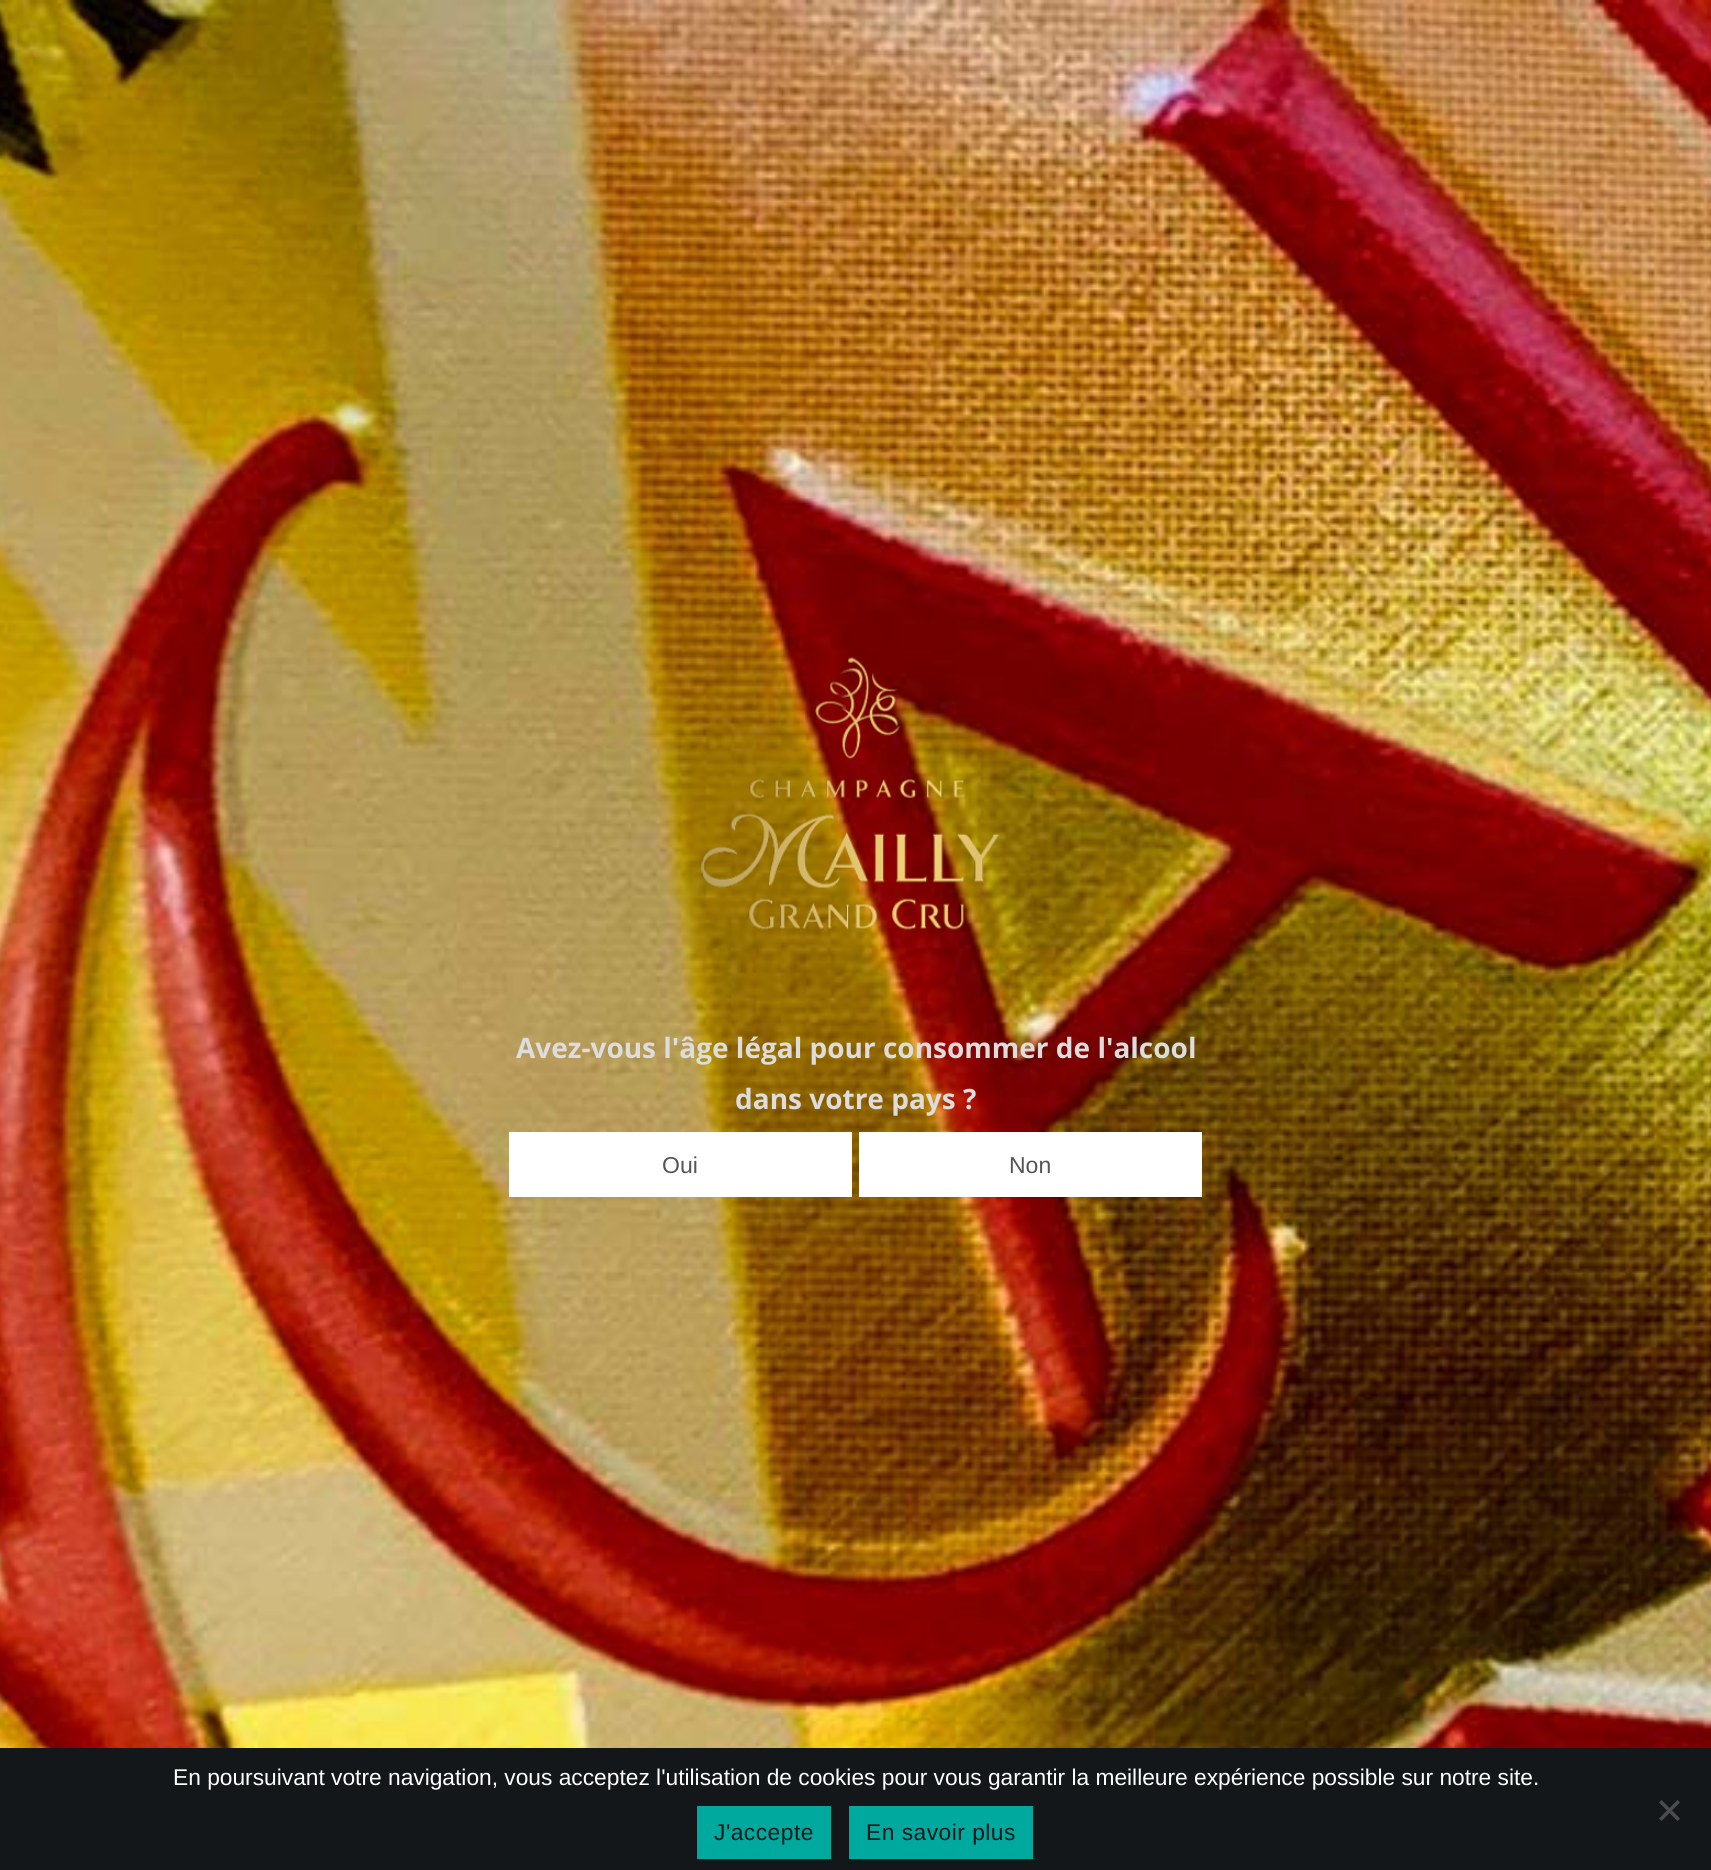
import math
import cairo


def write_spaced(ctx, x, y, s, letter, word):
	ctx.move_to(x, y)
	for ch in s:
		ctx.show_text(ch)
		ctx.rel_move_to(letter + word * (ch == ' '), 0)

def paste(ctx, path, x, y, w, h):
	ctx.save()
	ctx.set_source_surface(cairo.ImageSurface.create_from_png(path), x, y)
	ctx.rectangle(x, y, w, h)
	ctx.fill()
	ctx.restore()

def draw(ctx):
	ctx.set_source_rgb(1, 1, 1)
	ctx.paint()
	paste(ctx, 'media/1.png', 0, 0, 1711, 1748)
	paste(ctx, 'media/2.png', 701, 657, 299, 273)
	ctx.select_font_face('Open Sans', cairo.FONT_SLANT_NORMAL, cairo.FONT_WEIGHT_BOLD)
	ctx.set_font_size(28)
	ctx.set_source_rgb(0.867, 0.867, 0.867)
	ctx.move_to(516, 1058)
	ctx.show_text('Avez-vous l\'âge légal pour consommer de l\'alcool')
	ctx.move_to(735, 1109)
	ctx.show_text('dans votre pays ?')
	ctx.set_source_rgb(1, 1, 1)
	ctx.rectangle(509, 1132, 343, 65)
	ctx.fill()
	ctx.select_font_face('Liberation Sans')
	ctx.set_font_size(23)
	ctx.set_source_rgb(0.333, 0.333, 0.333)
	ctx.move_to(662, 1173)
	ctx.show_text('Oui')
	ctx.set_source_rgb(1, 1, 1)
	ctx.rectangle(859, 1132, 343, 65)
	ctx.fill()
	ctx.set_source_rgb(0.333, 0.333, 0.333)
	ctx.move_to(1009, 1173)
	ctx.show_text('Non')
	ctx.set_source_rgb(0.078, 0.09, 0.102)
	ctx.rectangle(0, 1748, 1711, 122)
	ctx.fill()
	ctx.set_font_size(22.75)
	ctx.set_source_rgb(1, 1, 1)
	ctx.move_to(173, 1785)
	ctx.show_text('En poursuivant votre navigation, vous acceptez l\'utilisation de cookies pour vous garantir la meilleure expérience possible sur notre site.')
	ctx.set_source_rgb(0.29, 0.298, 0.302)
	ctx.new_path()
	ctx.move_to(1677.5, 1800)
	ctx.line_to(1680, 1802.5)
	ctx.line_to(1661.5, 1821)
	ctx.line_to(1659, 1818.5)
	ctx.close_path()
	ctx.fill()
	ctx.new_path()
	ctx.move_to(1659, 1802.5)
	ctx.line_to(1661.5, 1800)
	ctx.line_to(1680, 1818.5)
	ctx.line_to(1677.5, 1821)
	ctx.close_path()
	ctx.fill()
	ctx.set_source_rgb(0, 0.663, 0.616)
	ctx.rectangle(697, 1806, 134, 53)
	ctx.fill()
	ctx.set_source_rgb(0.078, 0.09, 0.102)
	write_spaced(ctx, 714, 1840, 'J\'accepte', 0.5, 0)
	ctx.set_source_rgb(0, 0.663, 0.616)
	ctx.rectangle(849, 1806, 184, 53)
	ctx.fill()
	ctx.set_source_rgb(0.078, 0.09, 0.102)
	write_spaced(ctx, 866, 1840, 'En savoir plus', 0.5, 0)


surface = cairo.ImageSurface(cairo.FORMAT_RGB24, 1711, 1870)
ctx = cairo.Context(surface)
options = cairo.FontOptions()
options.set_hint_metrics(cairo.HINT_METRICS_OFF)
options.set_hint_style(cairo.HINT_STYLE_NONE)
ctx.set_font_options(options)
ctx.set_miter_limit(4)
draw(ctx)
surface.write_to_png('image.png')
